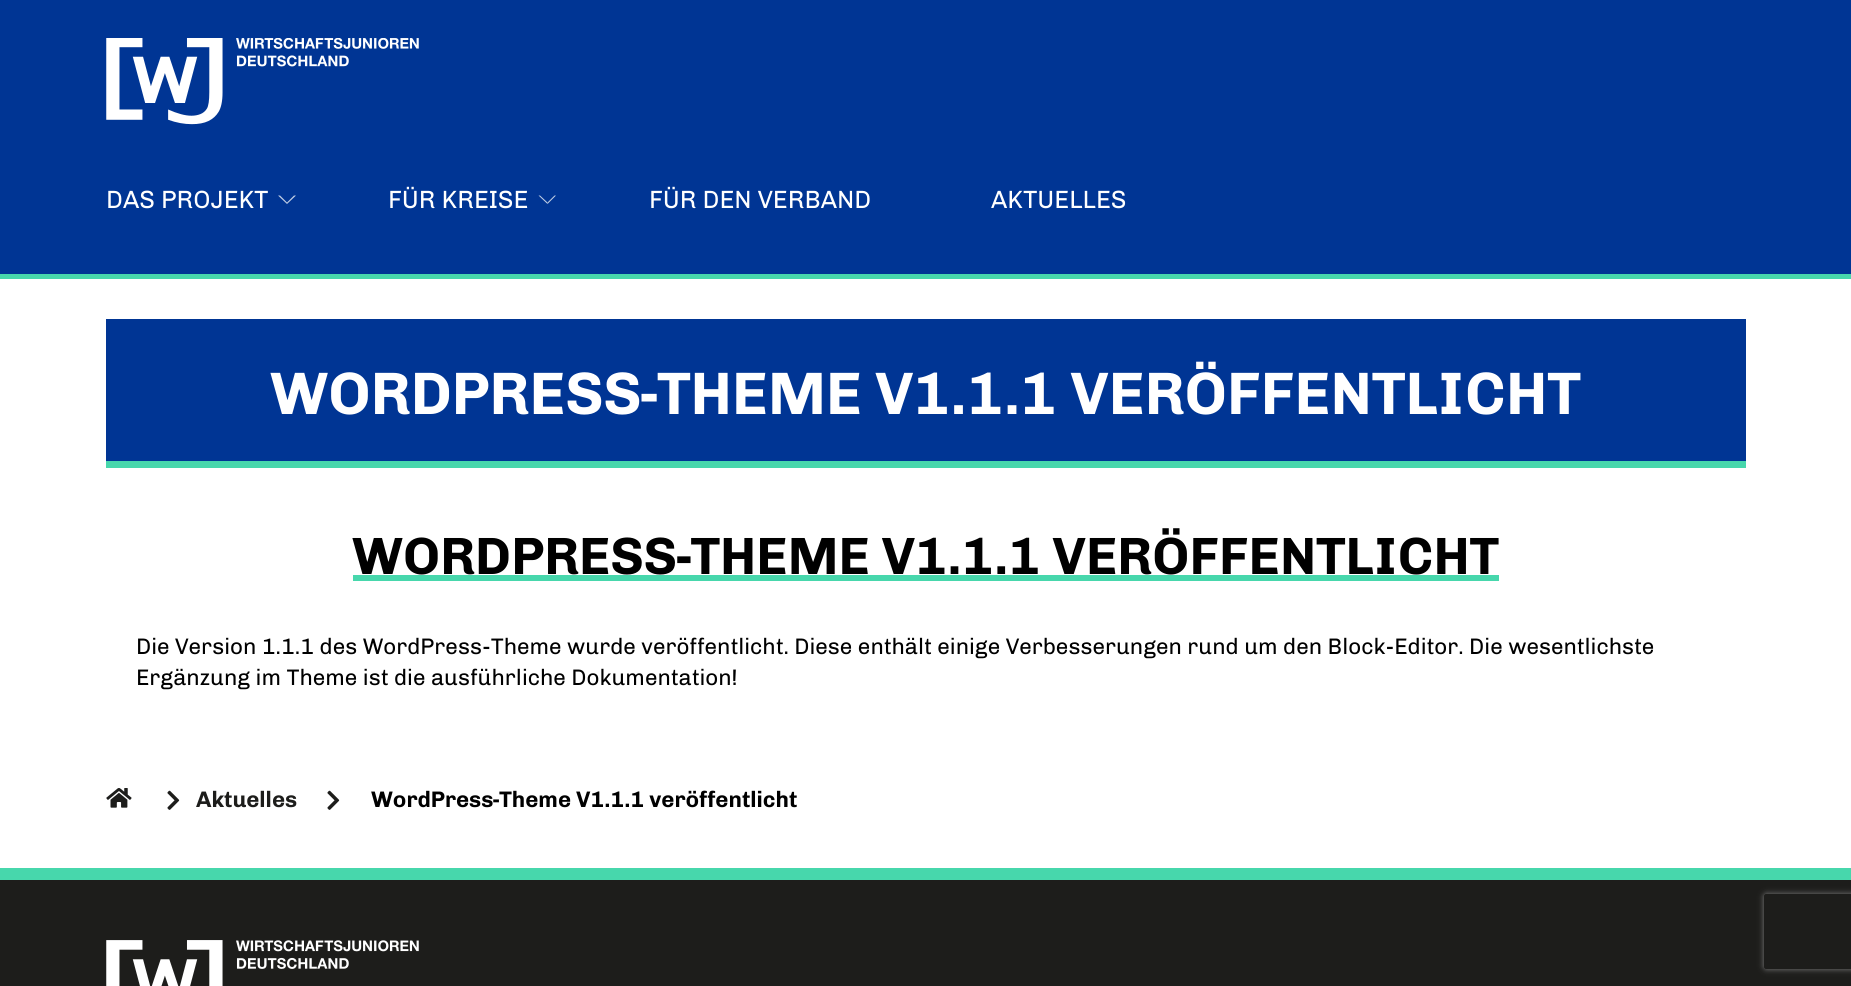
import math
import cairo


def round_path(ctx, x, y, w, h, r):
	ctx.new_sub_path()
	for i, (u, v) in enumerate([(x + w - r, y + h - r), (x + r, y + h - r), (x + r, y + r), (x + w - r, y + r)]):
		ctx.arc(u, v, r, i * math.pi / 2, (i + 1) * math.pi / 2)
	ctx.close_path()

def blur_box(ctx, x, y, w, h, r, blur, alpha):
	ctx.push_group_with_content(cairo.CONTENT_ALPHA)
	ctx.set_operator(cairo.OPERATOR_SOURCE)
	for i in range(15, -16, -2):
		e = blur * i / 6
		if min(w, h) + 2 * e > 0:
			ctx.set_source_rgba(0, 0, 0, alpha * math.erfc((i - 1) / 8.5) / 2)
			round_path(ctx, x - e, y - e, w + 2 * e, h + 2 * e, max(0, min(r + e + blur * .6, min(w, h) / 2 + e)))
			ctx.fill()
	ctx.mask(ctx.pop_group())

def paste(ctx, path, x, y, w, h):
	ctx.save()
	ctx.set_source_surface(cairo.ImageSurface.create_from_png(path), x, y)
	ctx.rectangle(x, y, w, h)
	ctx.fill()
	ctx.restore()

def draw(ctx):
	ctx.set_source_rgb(1, 1, 1)
	ctx.paint()
	ctx.set_source_rgb(0, 0.208, 0.58)
	ctx.rectangle(0, 0, 1851, 274)
	ctx.fill()
	paste(ctx, 'media/1.png', 106, 38, 313, 87)
	ctx.select_font_face('Chivo')
	ctx.set_font_size(25)
	ctx.set_source_rgb(1, 1, 1)
	ctx.move_to(106, 208)
	ctx.show_text('DAS PROJEKT')
	ctx.set_source_rgb(0.749, 0.804, 0.894)
	ctx.new_path()
	ctx.move_to(296, 195.5)
	ctx.line_to(287, 204)
	ctx.line_to(287, 202.5)
	ctx.line_to(294, 195.5)
	ctx.close_path()
	ctx.move_to(287, 204)
	ctx.line_to(278, 195.5)
	ctx.line_to(280, 195.5)
	ctx.line_to(287, 202.5)
	ctx.close_path()
	ctx.fill()
	ctx.set_source_rgb(1, 1, 1)
	ctx.move_to(388, 208)
	ctx.show_text('FÜR KREISE')
	ctx.set_source_rgb(0.749, 0.804, 0.894)
	ctx.new_path()
	ctx.move_to(556, 195.5)
	ctx.line_to(547.5, 204)
	ctx.line_to(547.5, 202.5)
	ctx.line_to(554.5, 195.5)
	ctx.close_path()
	ctx.fill()
	ctx.new_path()
	ctx.move_to(547.5, 204)
	ctx.line_to(538.5, 195.5)
	ctx.line_to(540, 195.5)
	ctx.line_to(547.5, 202.5)
	ctx.close_path()
	ctx.fill()
	ctx.set_source_rgb(1, 1, 1)
	ctx.move_to(649, 208)
	ctx.show_text('FÜR DEN VERBAND')
	ctx.move_to(991, 208)
	ctx.show_text('AKTUELLES')
	ctx.set_source_rgb(0.278, 0.843, 0.675)
	ctx.rectangle(0, 274, 1851, 5)
	ctx.fill()
	ctx.set_source_rgb(0, 0.208, 0.58)
	ctx.rectangle(106, 319, 1640, 142)
	ctx.fill()
	ctx.select_font_face('Chivo', cairo.FONT_SLANT_NORMAL, cairo.FONT_WEIGHT_BOLD)
	ctx.set_font_size(60)
	ctx.set_source_rgb(1, 1, 1)
	ctx.move_to(270, 414)
	ctx.show_text('WORDPRESS-THEME V1.1.1 VERÖFFENTLICHT')
	ctx.set_source_rgb(0.278, 0.843, 0.675)
	ctx.rectangle(106, 461, 1640, 7)
	ctx.fill()
	ctx.set_font_size(52.5)
	ctx.set_source_rgb(0, 0, 0)
	ctx.move_to(352, 574)
	ctx.show_text('WORDPRESS-THEME V1.1.1 VERÖFFENTLICHT')
	ctx.set_source_rgb(0.278, 0.843, 0.675)
	ctx.rectangle(353, 575, 1146, 6)
	ctx.fill()
	ctx.select_font_face('Chivo')
	ctx.set_font_size(22.5)
	ctx.set_source_rgb(0, 0, 0)
	ctx.move_to(136, 654)
	ctx.show_text('Die Version 1.1.1 des WordPress-Theme wurde veröffentlicht. Diese enthält einige Verbesserungen rund um den Block-Editor. Die wesentlichste')
	ctx.move_to(136, 685)
	ctx.show_text('Ergänzung im Theme ist die ausführliche Dokumentation!')
	paste(ctx, 'media/2.png', 106, 788, 26, 20)
	paste(ctx, 'media/3.png', 167, 790, 13, 20)
	ctx.select_font_face('Chivo', cairo.FONT_SLANT_NORMAL, cairo.FONT_WEIGHT_BOLD)
	ctx.set_source_rgb(0.114, 0.114, 0.106)
	ctx.move_to(196, 807)
	ctx.show_text('Aktuelles')
	paste(ctx, 'media/3.png', 327, 790, 13, 20)
	ctx.set_source_rgb(0, 0, 0)
	ctx.move_to(371, 807)
	ctx.show_text('WordPress-Theme V1.1.1 veröffentlicht')
	ctx.set_source_rgb(0.114, 0.114, 0.106)
	ctx.rectangle(0, 880, 1851, 106)
	ctx.fill()
	ctx.set_source_rgb(0.278, 0.843, 0.675)
	ctx.rectangle(0, 868, 1851, 12)
	ctx.fill()
	paste(ctx, 'media/4.png', 106, 940, 313, 46)
	ctx.save()
	ctx.set_fill_rule(cairo.FILL_RULE_EVEN_ODD)
	ctx.new_path()
	ctx.move_to(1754, 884)
	ctx.line_to(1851, 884)
	ctx.line_to(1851, 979)
	ctx.line_to(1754, 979)
	ctx.close_path()
	ctx.move_to(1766.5, 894)
	ctx.line_to(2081.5, 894)
	ctx.curve_to(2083, 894, 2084, 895, 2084, 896.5)
	ctx.line_to(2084, 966.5)
	ctx.curve_to(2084, 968, 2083, 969, 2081.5, 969)
	ctx.line_to(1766.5, 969)
	ctx.curve_to(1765, 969, 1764, 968, 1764, 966.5)
	ctx.line_to(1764, 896.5)
	ctx.curve_to(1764, 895, 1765, 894, 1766.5, 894)
	ctx.close_path()
	ctx.clip()
	ctx.set_source_rgb(0.502, 0.502, 0.502)
	blur_box(ctx, 1764, 894, 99, 75, 2.5, 3, 1)
	ctx.restore()


surface = cairo.ImageSurface(cairo.FORMAT_RGB24, 1851, 986)
ctx = cairo.Context(surface)
options = cairo.FontOptions()
options.set_hint_metrics(cairo.HINT_METRICS_OFF)
options.set_hint_style(cairo.HINT_STYLE_NONE)
ctx.set_font_options(options)
ctx.set_miter_limit(4)
draw(ctx)
surface.write_to_png('image.png')
